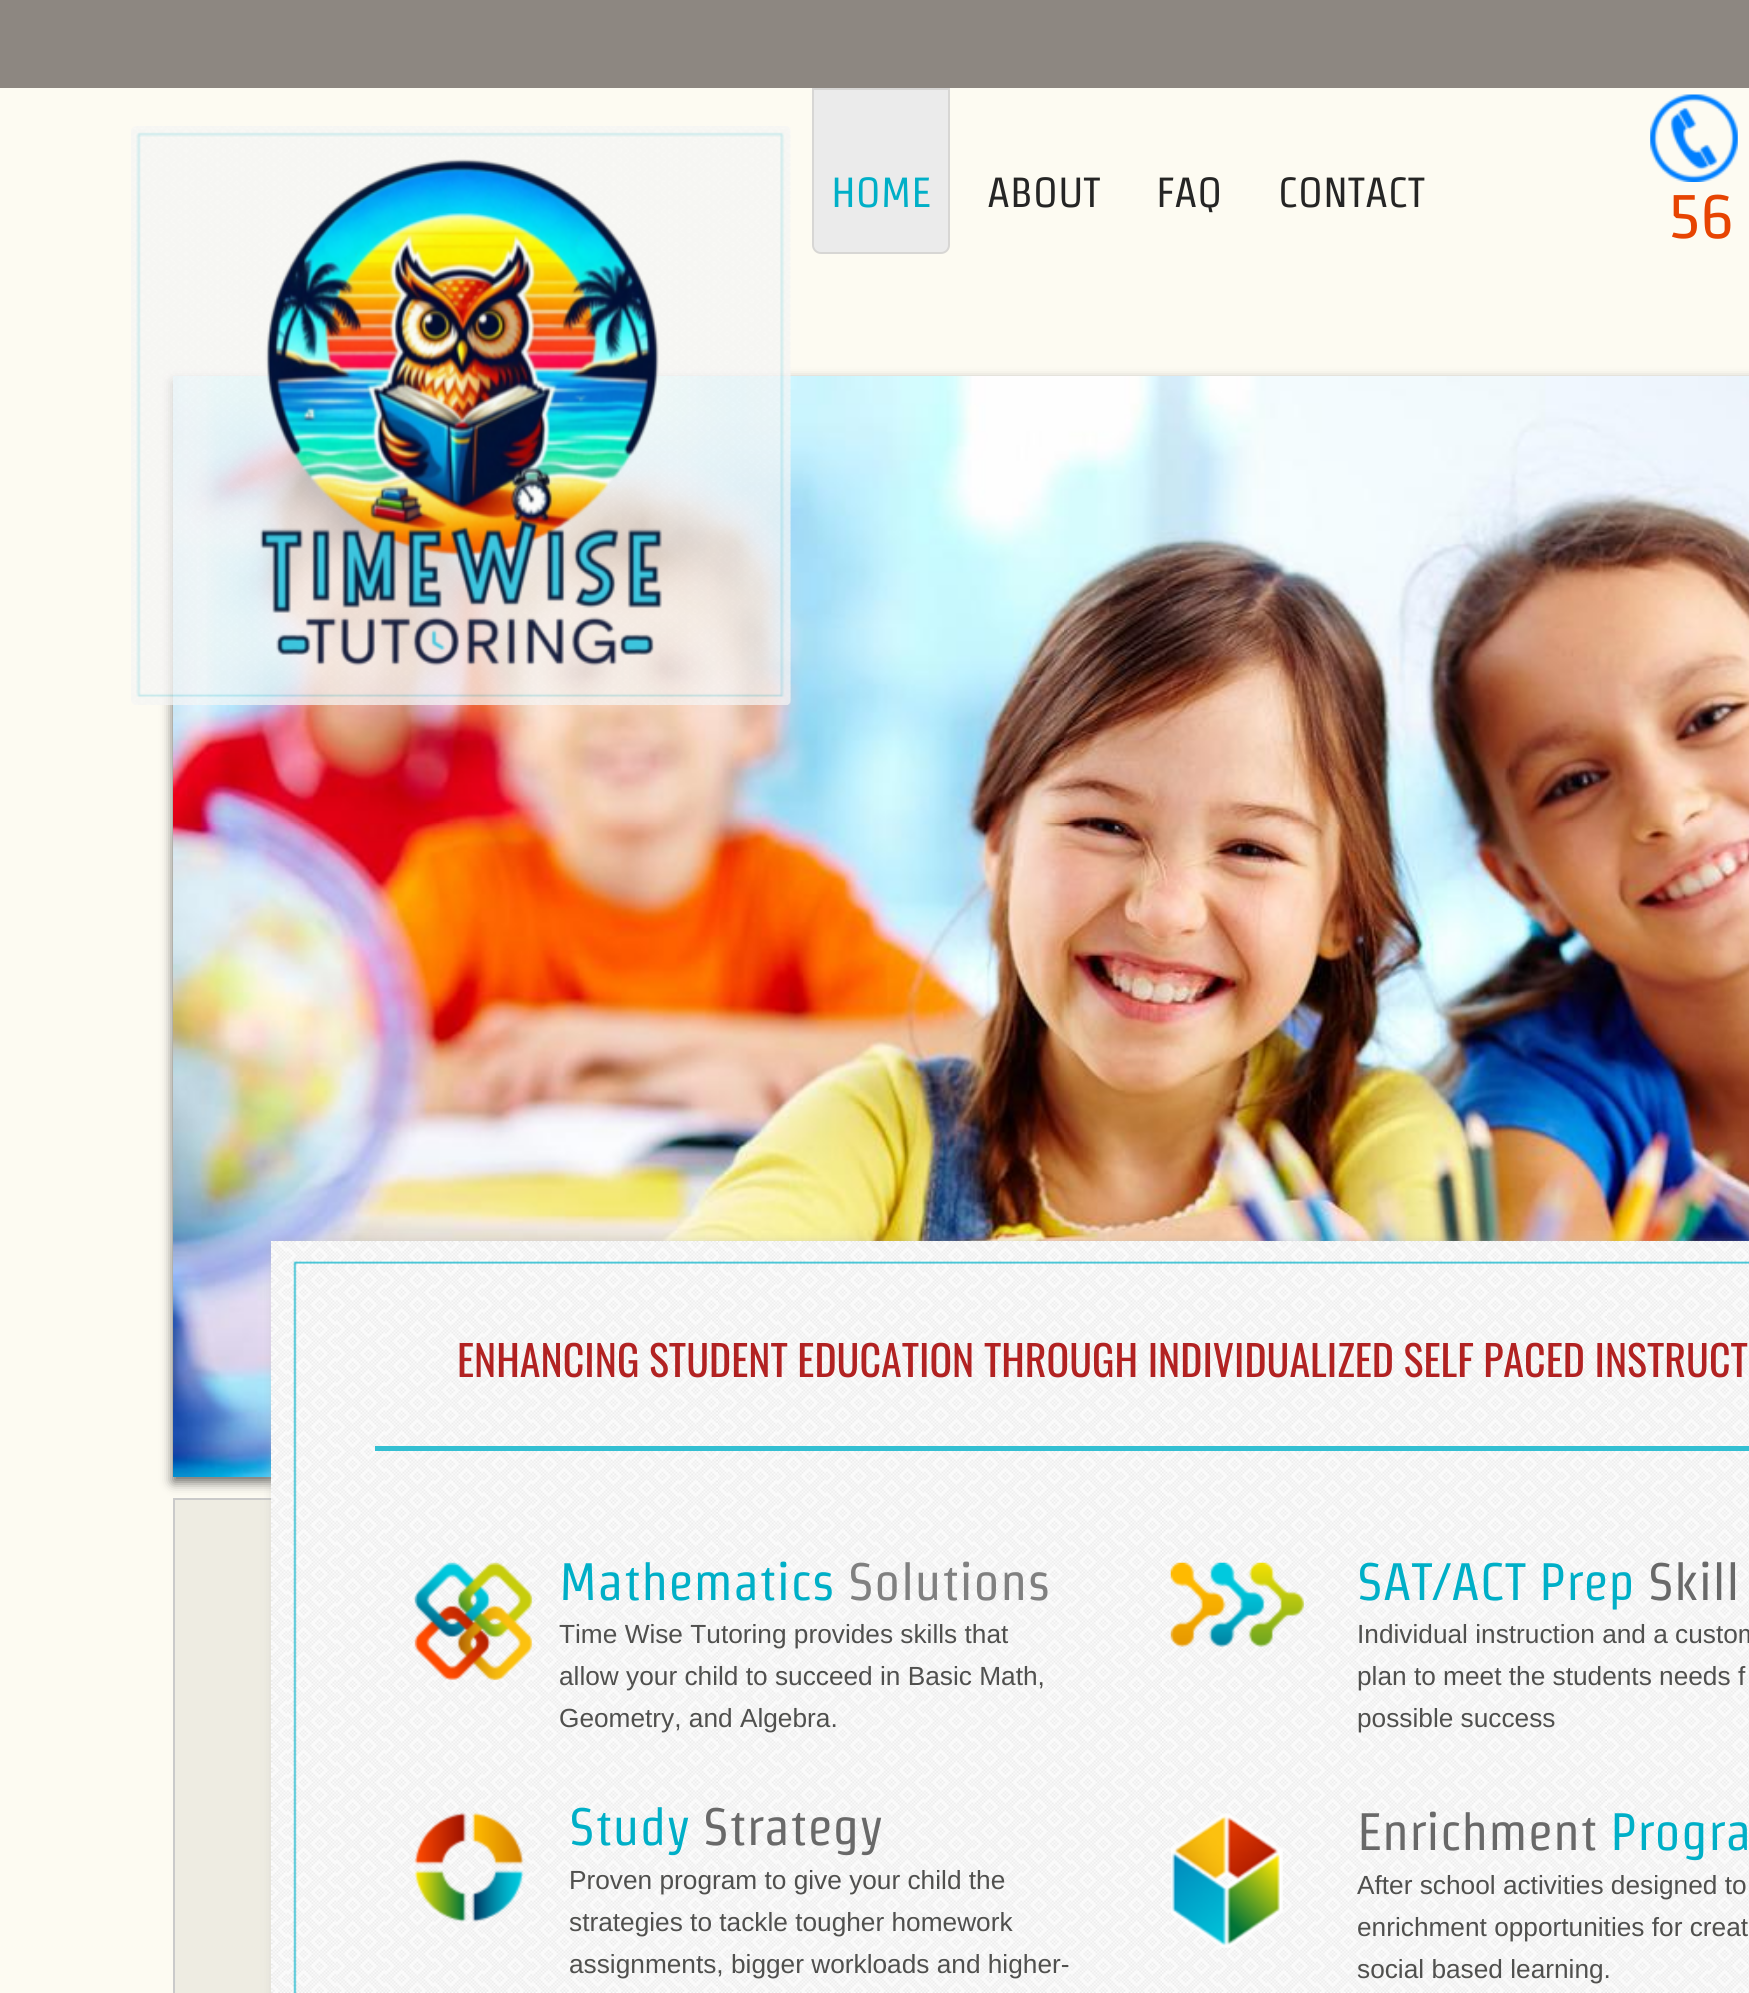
import math
import cairo


def round_path(ctx, x, y, w, h, r):
	ctx.new_sub_path()
	for i, (u, v) in enumerate([(x + w - r, y + h - r), (x + r, y + h - r), (x + r, y + r), (x + w - r, y + r)]):
		ctx.arc(u, v, r, i * math.pi / 2, (i + 1) * math.pi / 2)
	ctx.close_path()

def blur_box(ctx, x, y, w, h, r, blur, alpha):
	ctx.push_group_with_content(cairo.CONTENT_ALPHA)
	ctx.set_operator(cairo.OPERATOR_SOURCE)
	for i in range(15, -16, -2):
		e = blur * i / 6
		if min(w, h) + 2 * e > 0:
			ctx.set_source_rgba(0, 0, 0, alpha * math.erfc((i - 1) / 8.5) / 2)
			round_path(ctx, x - e, y - e, w + 2 * e, h + 2 * e, max(0, min(r + e + blur * .6, min(w, h) / 2 + e)))
			ctx.fill()
	ctx.mask(ctx.pop_group())

def paste(ctx, path, x, y, w, h):
	ctx.save()
	ctx.set_source_surface(cairo.ImageSurface.create_from_png(path), x, y)
	ctx.rectangle(x, y, w, h)
	ctx.fill()
	ctx.restore()

def draw(ctx):
	ctx.set_source_rgb(0.553, 0.529, 0.506)
	ctx.paint()
	ctx.set_source_rgb(0.992, 0.984, 0.949)
	ctx.rectangle(0, 88, 1749, 1905)
	ctx.fill()
	ctx.set_source_rgb(0.933, 0.925, 0.886)
	ctx.rectangle(175, 1500, 96, 493)
	ctx.fill()
	ctx.rectangle(174, 1499, 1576, 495)
	ctx.set_source_rgb(0.792, 0.792, 0.792)
	ctx.stroke()
	ctx.set_source_rgb(0.196, 0.196, 0.196)
	blur_box(ctx, 173, 382, 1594, 1100, 0, 6, 0.75)
	paste(ctx, 'media/4.png', 173, 376, 1576, 1101)
	paste(ctx, 'media/1.png', 131, 126, 660, 579)
	paste(ctx, 'media/2.png', 1650, 94, 88, 88)
	paste(ctx, 'media/3.png', 260, 159, 402, 507)
	ctx.set_source_rgb(0.918, 0.918, 0.918)
	ctx.new_path()
	ctx.move_to(813, 89)
	ctx.line_to(949, 89)
	ctx.line_to(949, 245)
	ctx.curve_to(949, 249.5, 945.5, 253, 941, 253)
	ctx.line_to(821, 253)
	ctx.curve_to(816.5, 253, 813, 249.5, 813, 245)
	ctx.close_path()
	ctx.fill_preserve()
	ctx.set_source_rgb(0.843, 0.839, 0.831)
	ctx.stroke()
	ctx.select_font_face('Strait')
	ctx.set_font_size(42)
	ctx.set_source_rgb(0, 0.686, 0.78)
	ctx.move_to(831, 207)
	ctx.show_text('HOME')
	ctx.set_source_rgb(0.145, 0.145, 0.145)
	for x, y, s in [
		(987, 207, 'ABOUT'),
		(1156, 207, 'FAQ'),
		(1278, 207, 'CONTACT'),
	]:
		ctx.move_to(x, y)
		ctx.show_text(s)
	ctx.set_font_size(66)
	ctx.set_source_rgb(0.906, 0.267, 0.008)
	ctx.move_to(1668, 238)
	ctx.show_text('56')
	ctx.set_source_rgb(0.733, 0.733, 0.733)
	blur_box(ctx, 277, 1246, 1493, 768, 0, 7, 1)
	paste(ctx, 'media/5.png', 271, 1241, 1478, 752)
	ctx.select_font_face('Oswald')
	ctx.set_font_size(42)
	ctx.set_source_rgb(0.698, 0.133, 0.133)
	ctx.move_to(457, 1377)
	ctx.show_text('ENHANCING STUDENT EDUCATION THROUGH INDIVIDUALIZED SELF PACED INSTRUCT')
	ctx.set_source_rgb(0.2, 0.749, 0.824)
	ctx.rectangle(375, 1446, 1374, 5)
	ctx.fill()
	paste(ctx, 'media/6.png', 414, 1562, 119, 119)
	ctx.select_font_face('Strait')
	ctx.set_font_size(52.5)
	ctx.set_source_rgb(0, 0.686, 0.78)
	ctx.move_to(559, 1600)
	ctx.show_text('Mathematics')
	ctx.set_source_rgb(0.502, 0.502, 0.502)
	ctx.move_to(848, 1600)
	ctx.show_text('Solutions')
	ctx.select_font_face('Liberation Sans')
	ctx.set_font_size(26.25)
	ctx.set_source_rgb(0.314, 0.314, 0.306)
	for x, y, s in [
		(559, 1643, 'Time Wise Tutoring provides skills that'),
		(559, 1685, 'allow your child to succeed in Basic Math,'),
		(559, 1727, 'Geometry, and Algebra.'),
	]:
		ctx.move_to(x, y)
		ctx.show_text(s)
	paste(ctx, 'media/7.png', 1170, 1562, 134, 85)
	ctx.select_font_face('Strait')
	ctx.set_font_size(52.5)
	ctx.set_source_rgb(0, 0.686, 0.78)
	ctx.move_to(1357, 1600)
	ctx.show_text('SAT/ACT Prep')
	ctx.set_source_rgb(0.412, 0.412, 0.412)
	ctx.move_to(1648, 1600)
	ctx.show_text('Skill')
	ctx.select_font_face('Liberation Sans')
	ctx.set_font_size(26.25)
	ctx.set_source_rgb(0.314, 0.314, 0.306)
	for x, y, s in [
		(1357, 1643, 'Individual instruction and a custom'),
		(1357, 1685, 'plan to meet the students needs f'),
		(1357, 1727, 'possible success'),
	]:
		ctx.move_to(x, y)
		ctx.show_text(s)
	paste(ctx, 'media/8.png', 414, 1812, 110, 110)
	ctx.select_font_face('Strait')
	ctx.set_font_size(52.5)
	ctx.set_source_rgb(0, 0.686, 0.78)
	ctx.move_to(569, 1845)
	ctx.show_text('Study')
	ctx.set_source_rgb(0.412, 0.412, 0.412)
	ctx.move_to(703, 1845)
	ctx.show_text('Strategy')
	ctx.select_font_face('Liberation Sans')
	ctx.set_font_size(26.25)
	ctx.set_source_rgb(0.314, 0.314, 0.306)
	for x, y, s in [
		(569, 1889, 'Proven program to give your child the'),
		(569, 1931, 'strategies to tackle tougher homework'),
		(569, 1973, 'assignments, bigger workloads and higher-'),
	]:
		ctx.move_to(x, y)
		ctx.show_text(s)
	paste(ctx, 'media/9.png', 1171, 1813, 112, 135)
	ctx.select_font_face('Strait')
	ctx.set_font_size(52.5)
	ctx.set_source_rgb(0.412, 0.412, 0.412)
	ctx.move_to(1357, 1850)
	ctx.show_text('Enrichment')
	ctx.set_source_rgb(0, 0.686, 0.78)
	ctx.move_to(1610, 1850)
	ctx.show_text('Progra')
	ctx.select_font_face('Liberation Sans')
	ctx.set_font_size(26.25)
	ctx.set_source_rgb(0.314, 0.314, 0.306)
	for x, y, s in [
		(1357, 1894, 'After school activities designed to'),
		(1357, 1936, 'enrichment opportunities for creat'),
		(1357, 1978, 'social based learning.'),
	]:
		ctx.move_to(x, y)
		ctx.show_text(s)


surface = cairo.ImageSurface(cairo.FORMAT_RGB24, 1749, 1993)
ctx = cairo.Context(surface)
options = cairo.FontOptions()
options.set_hint_metrics(cairo.HINT_METRICS_OFF)
options.set_hint_style(cairo.HINT_STYLE_NONE)
ctx.set_font_options(options)
ctx.set_miter_limit(4)
draw(ctx)
surface.write_to_png('image.png')
